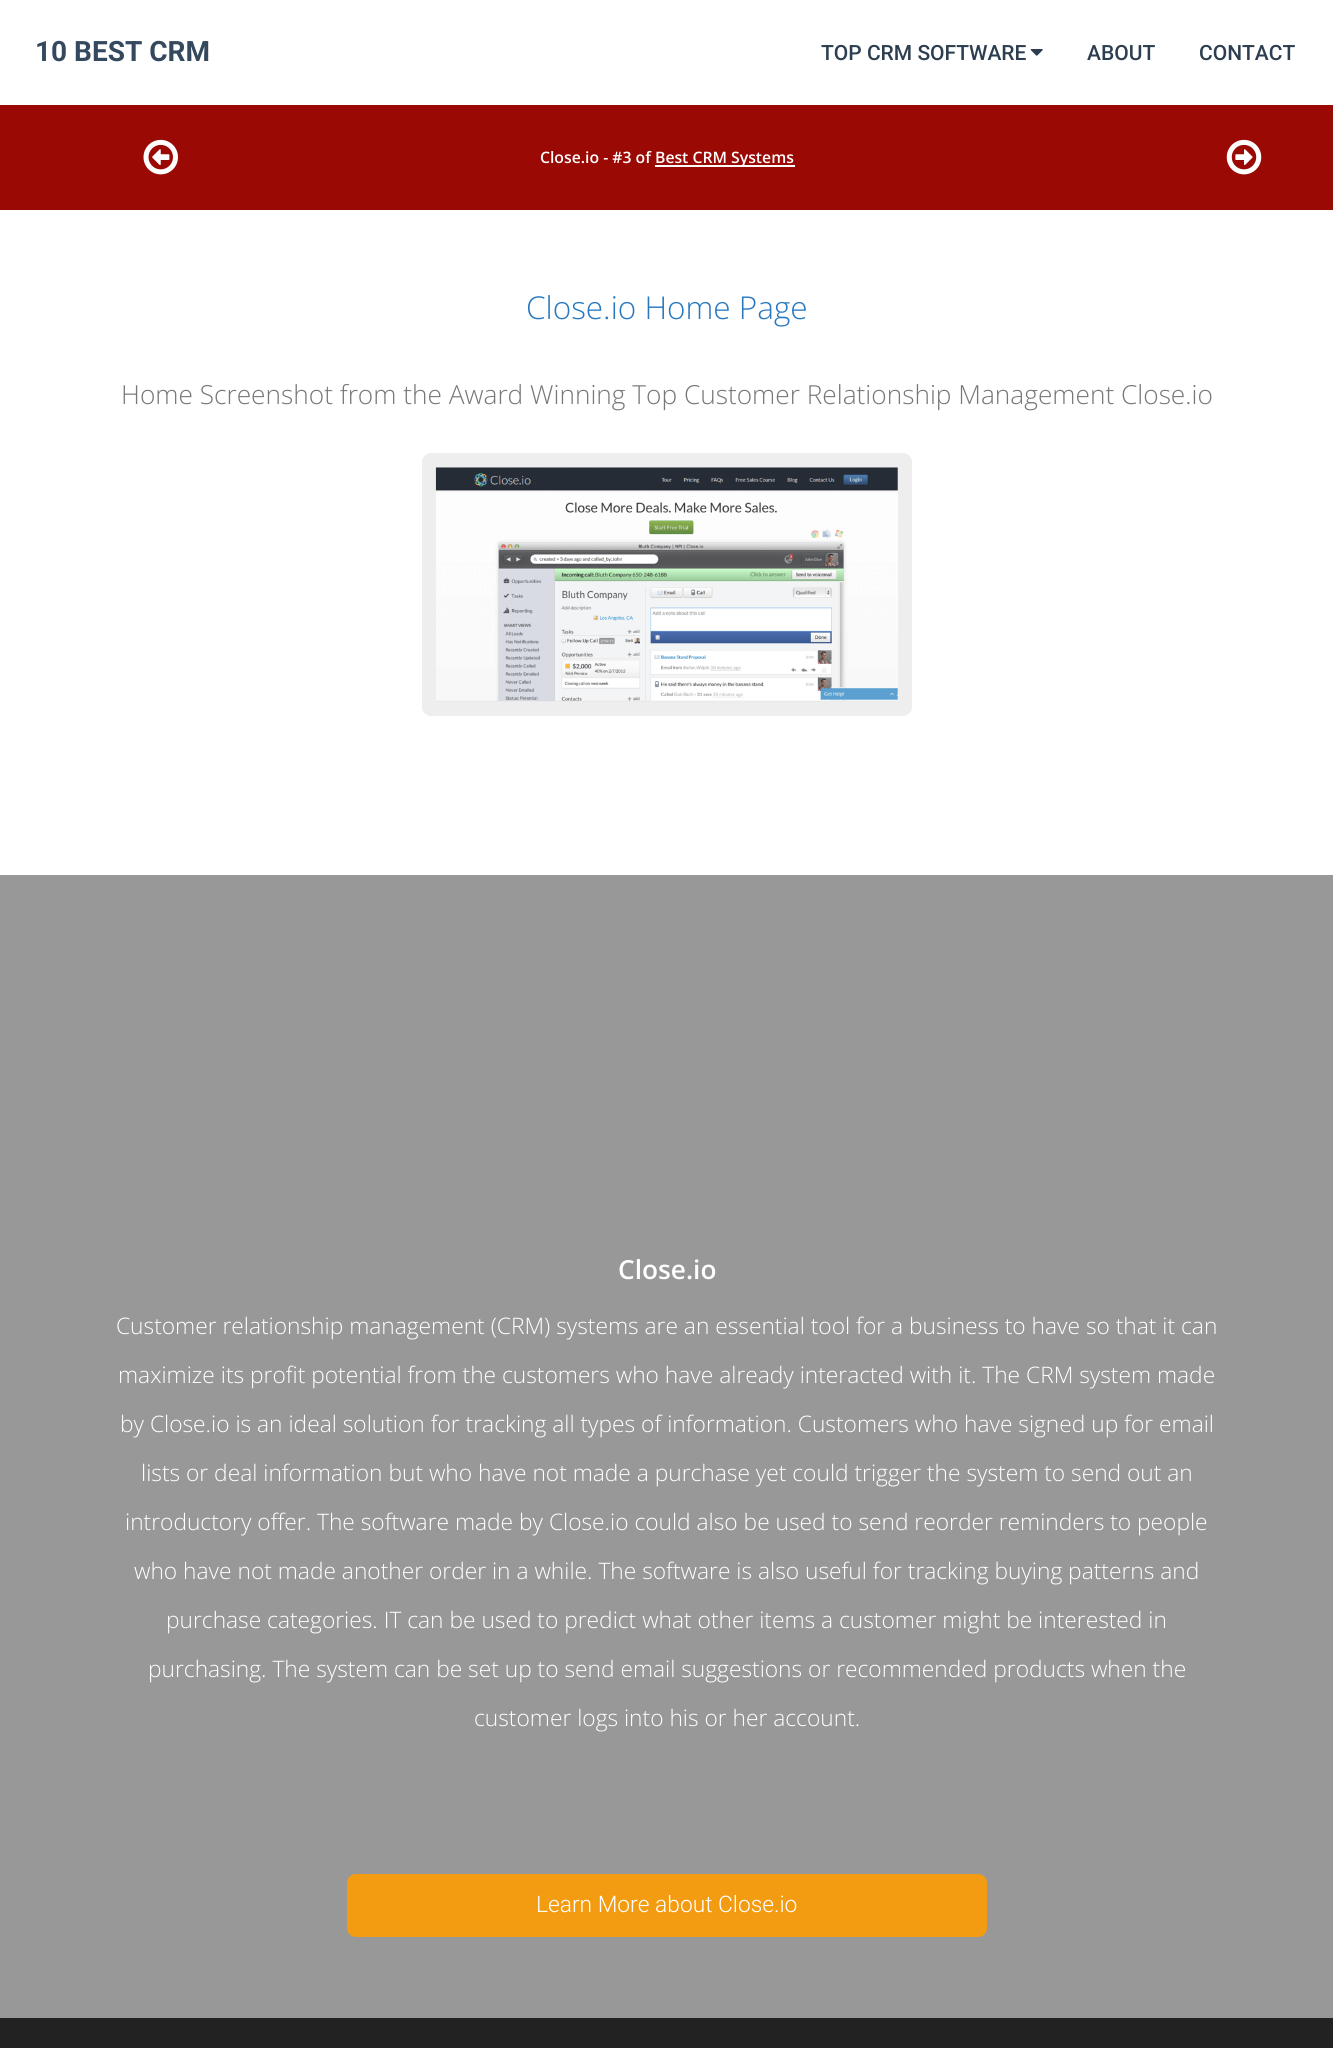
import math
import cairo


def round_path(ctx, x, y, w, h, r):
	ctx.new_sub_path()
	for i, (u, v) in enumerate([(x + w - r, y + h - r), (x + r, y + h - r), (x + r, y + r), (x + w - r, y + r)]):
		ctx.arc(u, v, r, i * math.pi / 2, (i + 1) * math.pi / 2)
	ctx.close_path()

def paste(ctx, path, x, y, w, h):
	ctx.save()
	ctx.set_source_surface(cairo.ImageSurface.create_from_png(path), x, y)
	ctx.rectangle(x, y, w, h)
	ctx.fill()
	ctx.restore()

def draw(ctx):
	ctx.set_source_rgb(1, 1, 1)
	ctx.paint()
	ctx.select_font_face('Roboto', cairo.FONT_SLANT_NORMAL, cairo.FONT_WEIGHT_BOLD)
	ctx.set_font_size(28)
	ctx.set_source_rgb(0.204, 0.286, 0.369)
	ctx.move_to(35, 61)
	ctx.show_text('10 BEST CRM')
	ctx.select_font_face('Roboto Medium')
	ctx.set_font_size(21)
	ctx.set_source_rgb(0.173, 0.243, 0.314)
	ctx.move_to(821, 60)
	ctx.show_text('TOP CRM SOFTWARE')
	paste(ctx, 'media/1.png', 1030, 49, 13, 7)
	ctx.move_to(1087, 60)
	ctx.show_text('ABOUT')
	ctx.move_to(1199, 60)
	ctx.show_text('CONTACT')
	ctx.set_source_rgb(0.608, 0.039, 0.02)
	ctx.rectangle(0, 105, 1333, 105)
	ctx.fill()
	paste(ctx, 'media/2.png', 143, 139, 35, 36)
	ctx.select_font_face('Open Sans SemiBold')
	ctx.set_font_size(15.75)
	ctx.set_source_rgb(1, 1, 1)
	ctx.move_to(540, 163)
	ctx.show_text('Close.io - #3 of')
	ctx.rectangle(655, 165, 140, 2)
	ctx.fill()
	ctx.move_to(655, 163)
	ctx.show_text('Best CRM Systems')
	paste(ctx, 'media/3.png', 1226, 139, 36, 36)
	ctx.select_font_face('Open Sans Light')
	ctx.set_font_size(31.5)
	ctx.set_source_rgb(0.153, 0.471, 0.749)
	ctx.move_to(526, 319)
	ctx.show_text('Close.io Home Page')
	ctx.set_font_size(26.25)
	ctx.set_source_rgb(0.467, 0.467, 0.467)
	ctx.move_to(121, 404)
	ctx.show_text('Home Screenshot from the Award Winning Top Customer Relationship Management Close.io')
	round_path(ctx, 429, 460, 476, 249, 2)
	ctx.set_source_rgb(0.933, 0.933, 0.933)
	ctx.set_line_width(14)
	ctx.stroke()
	paste(ctx, 'media/4.png', 435, 467, 463, 235)
	ctx.set_source_rgb(0.596, 0.596, 0.596)
	ctx.rectangle(0, 875, 1333, 1143)
	ctx.fill()
	ctx.select_font_face('Open Sans SemiBold')
	ctx.set_source_rgb(1, 1, 1)
	ctx.move_to(618, 1279)
	ctx.show_text('Close.io')
	ctx.select_font_face('Open Sans Light')
	ctx.set_font_size(22.75)
	for x, y, s in [
		(116, 1334, 'Customer relationship management (CRM) systems are an essential tool for a business to have so that it can'),
		(118, 1383, 'maximize its profit potential from the customers who have already interacted with it. The CRM system made'),
		(120, 1432, 'by Close.io is an ideal solution for tracking all types of information. Customers who have signed up for email'),
		(141, 1481, 'lists or deal information but who have not made a purchase yet could trigger the system to send out an'),
		(125, 1530, 'introductory offer. The software made by Close.io could also be used to send reorder reminders to people'),
		(134, 1579, 'who have not made another order in a while. The software is also useful for tracking buying patterns and'),
		(166, 1628, 'purchase categories. IT can be used to predict what other items a customer might be interested in'),
		(148, 1677, 'purchasing. The system can be set up to send email suggestions or recommended products when the'),
		(474, 1726, 'customer logs into his or her account.'),
	]:
		ctx.move_to(x, y)
		ctx.show_text(s)
	ctx.set_source_rgb(0.953, 0.612, 0.071)
	round_path(ctx, 347, 1874, 640, 63, 9)
	ctx.fill()
	ctx.select_font_face('Roboto Light')
	ctx.set_source_rgb(1, 1, 1)
	ctx.move_to(536, 1912)
	ctx.show_text('Learn More about Close.io')
	ctx.set_source_rgb(0.133, 0.133, 0.133)
	ctx.rectangle(0, 2018, 1333, 30)
	ctx.fill()


surface = cairo.ImageSurface(cairo.FORMAT_RGB24, 1333, 2048)
ctx = cairo.Context(surface)
options = cairo.FontOptions()
options.set_hint_metrics(cairo.HINT_METRICS_OFF)
options.set_hint_style(cairo.HINT_STYLE_NONE)
ctx.set_font_options(options)
ctx.set_miter_limit(4)
draw(ctx)
surface.write_to_png('image.png')
